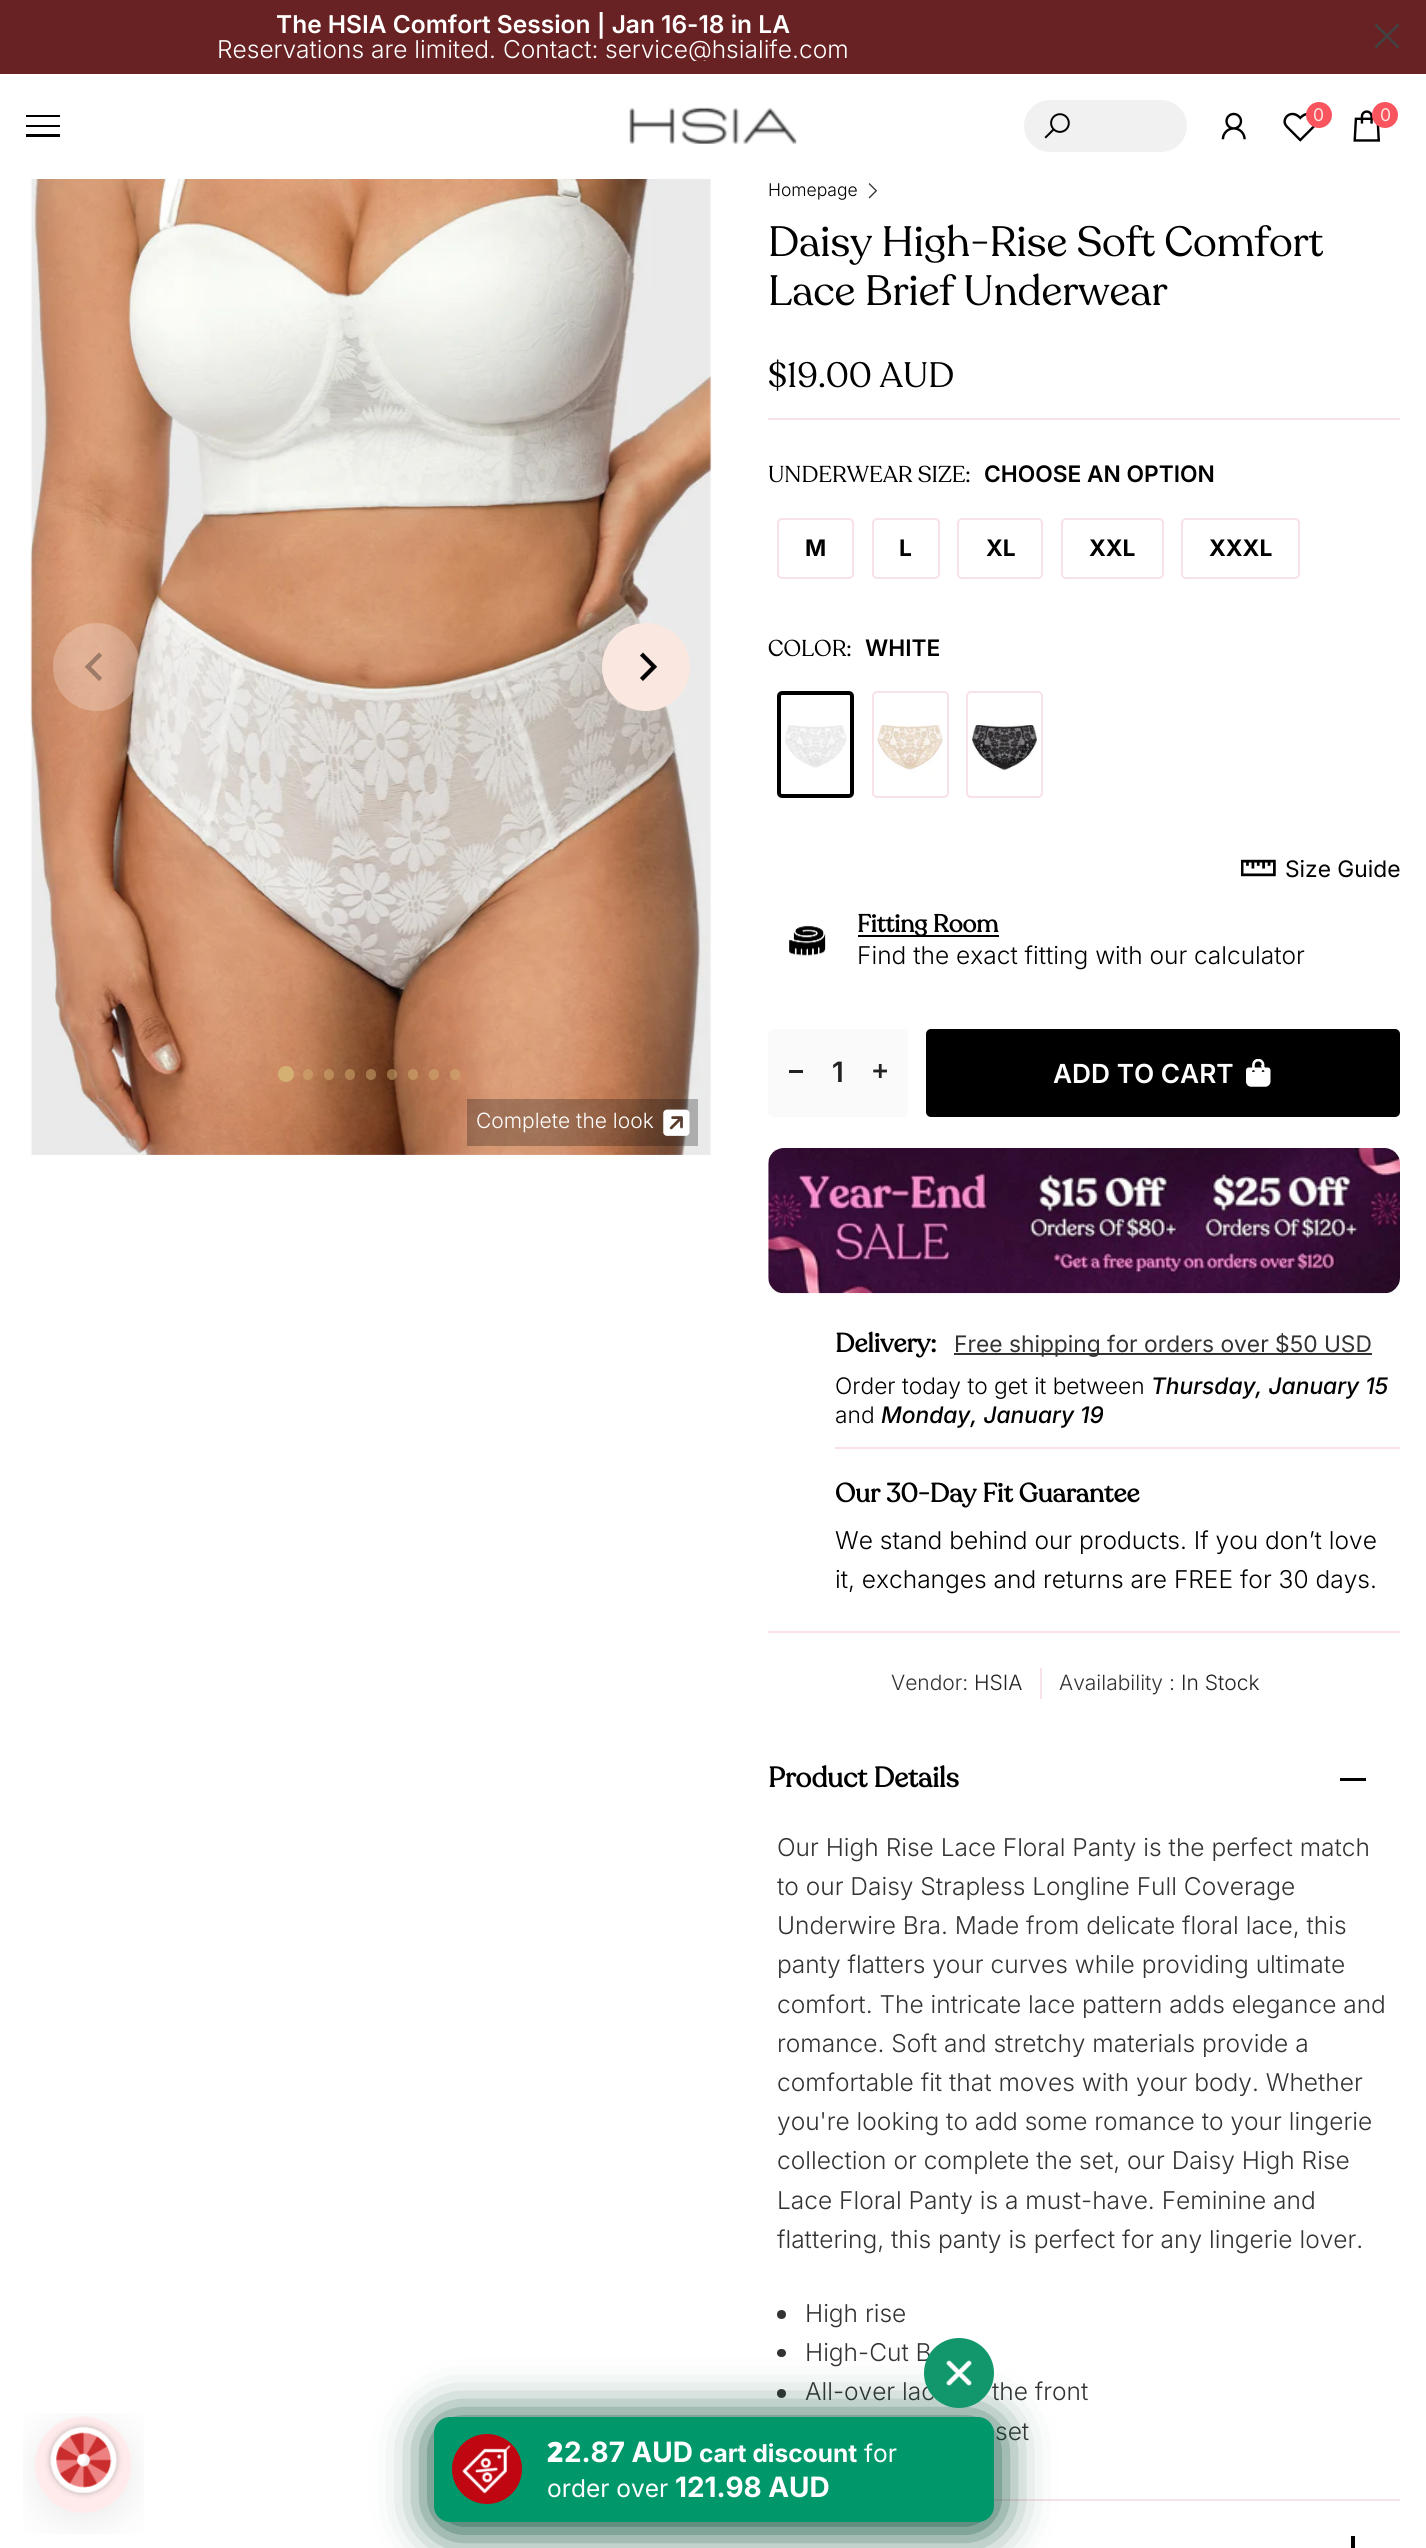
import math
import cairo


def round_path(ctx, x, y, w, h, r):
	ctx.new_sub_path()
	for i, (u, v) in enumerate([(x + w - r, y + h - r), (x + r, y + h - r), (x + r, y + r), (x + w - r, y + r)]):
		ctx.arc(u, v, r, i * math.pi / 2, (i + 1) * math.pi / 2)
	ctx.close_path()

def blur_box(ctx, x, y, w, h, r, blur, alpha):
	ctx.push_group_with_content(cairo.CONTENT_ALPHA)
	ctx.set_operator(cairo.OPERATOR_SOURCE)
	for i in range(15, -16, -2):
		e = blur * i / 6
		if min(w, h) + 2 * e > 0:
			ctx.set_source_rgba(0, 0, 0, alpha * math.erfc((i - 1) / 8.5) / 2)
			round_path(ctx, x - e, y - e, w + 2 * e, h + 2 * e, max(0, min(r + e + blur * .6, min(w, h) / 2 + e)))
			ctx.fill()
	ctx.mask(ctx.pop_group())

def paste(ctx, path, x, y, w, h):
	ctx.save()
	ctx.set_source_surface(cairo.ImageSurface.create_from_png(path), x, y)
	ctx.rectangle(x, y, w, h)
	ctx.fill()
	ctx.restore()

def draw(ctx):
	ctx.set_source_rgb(1, 1, 1)
	ctx.paint()
	ctx.set_source_rgb(0.412, 0.133, 0.141)
	ctx.rectangle(0, 0, 1426, 74)
	ctx.fill()
	ctx.save()
	ctx.rectangle(70, 12, 1106, 49)
	ctx.clip()
	ctx.select_font_face('Inter SemiBold')
	ctx.set_font_size(24.5)
	ctx.set_source_rgb(1, 1, 1)
	ctx.move_to(276, 33)
	ctx.show_text('The HSIA Comfort Session | Jan 16-18 in LA')
	ctx.restore()
	ctx.select_font_face('Inter Light')
	ctx.set_font_size(24.5)
	ctx.set_source_rgb(1, 1, 1)
	ctx.move_to(217, 58)
	ctx.show_text('Reservations are limited. Contact:')
	ctx.save()
	ctx.rectangle(70, 12, 1106, 49)
	ctx.clip()
	ctx.move_to(605, 58)
	ctx.show_text('service@hsialife.com')
	ctx.restore()
	ctx.new_path()
	ctx.move_to(1398.5, 24.5)
	ctx.line_to(1375.5, 47.5)
	ctx.move_to(1398.5, 47.5)
	ctx.line_to(1375.5, 24.5)
	ctx.set_source_rgb(0.259, 0.259, 0.259)
	ctx.set_line_width(2.5)
	ctx.stroke()
	ctx.set_source_rgb(0, 0, 0)
	ctx.rectangle(26, 115, 34, 2)
	ctx.rectangle(26, 125, 34, 2)
	ctx.rectangle(26, 134, 34, 3)
	ctx.fill()
	paste(ctx, 'media/1.png', 629, 107, 168, 37)
	ctx.set_source_rgb(0.945, 0.945, 0.945)
	round_path(ctx, 1024, 100, 163, 52, 26)
	ctx.fill()
	paste(ctx, 'media/2.png', 1044, 113, 26, 26)
	paste(ctx, 'media/3.png', 1221, 112, 25, 28)
	paste(ctx, 'media/4.png', 1283, 112, 32, 30)
	ctx.set_source_rgb(0.98, 0.329, 0.369)
	ctx.arc(1319, 115, 13, 0, 2 * math.pi)
	ctx.fill()
	ctx.select_font_face('Inter')
	ctx.set_font_size(17.5)
	ctx.set_source_rgb(0.98, 0.906, 0.878)
	ctx.move_to(1313, 121)
	ctx.show_text('0')
	paste(ctx, 'media/5.png', 1353, 110, 28, 32)
	ctx.set_source_rgb(0.98, 0.329, 0.369)
	ctx.arc(1385, 115, 13, 0, 2 * math.pi)
	ctx.fill()
	ctx.set_source_rgb(0.98, 0.906, 0.878)
	ctx.move_to(1380, 121)
	ctx.show_text('0')
	paste(ctx, 'media/6.png', 30, 179, 682, 976)
	ctx.set_source_rgba(0.98, 0.906, 0.878, 0.3)
	round_path(ctx, 53, 623, 87, 88, 43.5)
	ctx.fill()
	paste(ctx, 'media/7.png', 85, 652, 17, 29)
	ctx.set_source_rgb(0.98, 0.906, 0.878)
	ctx.arc(646, 667, 44, 0, 2 * math.pi)
	ctx.fill()
	paste(ctx, 'media/8.png', 640, 652, 18, 29)
	ctx.set_source_rgb(0.831, 0.69, 0.451)
	ctx.arc(286, 1074, 8, 0, 2 * math.pi)
	ctx.fill()
	ctx.set_source_rgba(0.831, 0.69, 0.451, 0.5)
	round_path(ctx, 303, 1069, 10, 11, 5)
	ctx.fill()
	round_path(ctx, 324, 1069, 10, 11, 5)
	ctx.fill()
	round_path(ctx, 345, 1069, 10, 11, 5)
	ctx.fill()
	round_path(ctx, 366, 1069, 10, 11, 5)
	ctx.fill()
	round_path(ctx, 387, 1069, 10, 11, 5)
	ctx.fill()
	round_path(ctx, 408, 1069, 10, 11, 5)
	ctx.fill()
	round_path(ctx, 429, 1069, 10, 11, 5)
	ctx.fill()
	round_path(ctx, 450, 1069, 10, 11, 5)
	ctx.fill()
	ctx.set_source_rgba(0, 0, 0, 0.26)
	ctx.rectangle(467, 1099, 231, 47)
	ctx.fill()
	ctx.select_font_face('Inter Light')
	ctx.set_font_size(21)
	ctx.set_source_rgb(1, 1, 1)
	ctx.move_to(476, 1128)
	ctx.show_text('Complete the look')
	paste(ctx, 'media/9.png', 663, 1109, 27, 27)
	ctx.set_font_size(17.5)
	ctx.set_source_rgb(0, 0, 0)
	ctx.move_to(768, 196)
	ctx.show_text('Homepage')
	paste(ctx, 'media/10.png', 868, 183, 10, 16)
	ctx.select_font_face('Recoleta')
	ctx.set_font_size(42)
	ctx.move_to(768, 256)
	ctx.show_text('Daisy High-Rise Soft Comfort')
	ctx.move_to(768, 305)
	ctx.show_text('Lace Brief Underwear')
	ctx.set_source_rgb(0.976, 0.886, 0.906)
	ctx.rectangle(768, 418, 632, 2)
	ctx.fill()
	ctx.set_font_size(35)
	ctx.set_source_rgb(0, 0, 0)
	ctx.move_to(768, 387)
	ctx.show_text('$19.00 AUD')
	ctx.set_font_size(22.75)
	ctx.move_to(768, 482)
	ctx.show_text('UNDERWEAR SIZE:')
	ctx.select_font_face('Inter SemiBold')
	ctx.move_to(984, 482)
	ctx.show_text('CHOOSE AN OPTION')
	round_path(ctx, 778, 519, 75, 59, 4)
	ctx.set_source_rgb(0.976, 0.886, 0.906)
	ctx.set_line_width(2)
	ctx.stroke()
	ctx.select_font_face('Inter', cairo.FONT_SLANT_NORMAL, cairo.FONT_WEIGHT_BOLD)
	ctx.set_source_rgb(0, 0, 0)
	ctx.move_to(805, 556)
	ctx.show_text('M')
	round_path(ctx, 873, 519, 66, 59, 4)
	ctx.set_source_rgb(0.976, 0.886, 0.906)
	ctx.stroke()
	ctx.set_source_rgb(0, 0, 0)
	ctx.move_to(899, 556)
	ctx.show_text('L')
	round_path(ctx, 958, 519, 84, 59, 4)
	ctx.set_source_rgb(0.976, 0.886, 0.906)
	ctx.stroke()
	ctx.set_source_rgb(0, 0, 0)
	ctx.move_to(986, 556)
	ctx.show_text('XL')
	round_path(ctx, 1062, 519, 101, 59, 4)
	ctx.set_source_rgb(0.976, 0.886, 0.906)
	ctx.stroke()
	ctx.set_source_rgb(0, 0, 0)
	ctx.move_to(1089, 556)
	ctx.show_text('XXL')
	round_path(ctx, 1182, 519, 117, 59, 4)
	ctx.set_source_rgb(0.976, 0.886, 0.906)
	ctx.stroke()
	ctx.set_source_rgb(0, 0, 0)
	ctx.move_to(1209, 556)
	ctx.show_text('XXXL')
	ctx.select_font_face('Recoleta')
	ctx.move_to(768, 656)
	ctx.show_text('COLOR:')
	ctx.select_font_face('Inter SemiBold')
	ctx.move_to(865, 656)
	ctx.show_text('WHITE')
	paste(ctx, 'media/11.png', 785, 725, 62, 43)
	round_path(ctx, 779, 693, 73, 103, 3)
	ctx.set_line_width(4)
	ctx.stroke()
	paste(ctx, 'media/12.png', 873, 693, 74, 105)
	round_path(ctx, 875, 695, 70, 99, 2)
	ctx.set_source_rgb(1, 1, 1)
	ctx.stroke()
	round_path(ctx, 873, 692, 75, 105, 4)
	ctx.set_source_rgb(0.976, 0.886, 0.906)
	ctx.set_line_width(2)
	ctx.stroke()
	paste(ctx, 'media/13.png', 967, 693, 75, 105)
	round_path(ctx, 970, 695, 69, 99, 2)
	ctx.set_source_rgb(1, 1, 1)
	ctx.set_line_width(4)
	ctx.stroke()
	round_path(ctx, 967, 692, 75, 105, 4)
	ctx.set_source_rgb(0.976, 0.886, 0.906)
	ctx.set_line_width(2)
	ctx.stroke()
	paste(ctx, 'media/14.png', 1241, 859, 35, 18)
	ctx.select_font_face('Inter')
	ctx.set_source_rgb(0, 0, 0)
	ctx.move_to(1285, 877)
	ctx.show_text('Size Guide')
	paste(ctx, 'media/15.png', 789, 925, 37, 31)
	ctx.rectangle(858, 935, 141, 2)
	ctx.fill()
	ctx.select_font_face('Recoleta', cairo.FONT_SLANT_NORMAL, cairo.FONT_WEIGHT_BOLD)
	ctx.set_font_size(24.5)
	ctx.move_to(857, 932)
	ctx.show_text('Fitting Room')
	ctx.select_font_face('Inter Light')
	ctx.move_to(857, 964)
	ctx.show_text('Find the exact fitting with our calculator')
	ctx.set_source_rgb(0.98, 0.98, 0.98)
	round_path(ctx, 768, 1029, 140, 88, 5)
	ctx.fill()
	ctx.set_source_rgb(0.133, 0.133, 0.133)
	ctx.rectangle(789, 1070, 14, 3)
	ctx.fill()
	ctx.select_font_face('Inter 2 SemiBold')
	ctx.set_font_size(28)
	ctx.move_to(832, 1082)
	ctx.show_text('1')
	paste(ctx, 'media/16.png', 873, 1064, 14, 14)
	ctx.set_source_rgb(0, 0, 0)
	round_path(ctx, 926, 1029, 474, 88, 5)
	ctx.fill()
	ctx.select_font_face('Inter SemiBold')
	ctx.set_font_size(26.25)
	ctx.set_source_rgb(1, 1, 1)
	ctx.move_to(1053, 1083)
	ctx.show_text('ADD TO CART')
	paste(ctx, 'media/17.png', 1246, 1059, 25, 28)
	paste(ctx, 'media/18.png', 768, 1148, 632, 146)
	ctx.set_source_rgb(0.976, 0.886, 0.906)
	ctx.rectangle(835, 1447, 565, 2)
	ctx.fill()
	ctx.select_font_face('Recoleta', cairo.FONT_SLANT_NORMAL, cairo.FONT_WEIGHT_BOLD)
	ctx.set_source_rgb(0, 0, 0)
	ctx.move_to(835, 1352)
	ctx.show_text('Delivery:')
	ctx.set_source_rgb(0.2, 0.2, 0.2)
	ctx.rectangle(954, 1353, 418, 2)
	ctx.fill()
	ctx.select_font_face('Inter')
	ctx.set_font_size(22.75)
	ctx.move_to(954, 1352)
	ctx.show_text('Free shipping for orders over $50 USD')
	ctx.select_font_face('Inter Light')
	ctx.set_source_rgb(0, 0, 0)
	ctx.move_to(835, 1394)
	ctx.show_text('Order today to get it between')
	ctx.select_font_face('Inter Medium', cairo.FONT_SLANT_ITALIC)
	ctx.move_to(1151, 1394)
	ctx.show_text('Thursday, January 15')
	ctx.select_font_face('Inter Light')
	ctx.move_to(835, 1423)
	ctx.show_text('and')
	ctx.select_font_face('Inter Medium', cairo.FONT_SLANT_ITALIC)
	ctx.move_to(881, 1423)
	ctx.show_text('Monday, January 19')
	ctx.select_font_face('Recoleta', cairo.FONT_SLANT_NORMAL, cairo.FONT_WEIGHT_BOLD)
	ctx.set_font_size(26.25)
	ctx.move_to(835, 1502)
	ctx.show_text('Our 30-Day Fit Guarantee')
	ctx.select_font_face('Inter Light')
	ctx.set_font_size(24.5)
	ctx.move_to(835, 1549)
	ctx.show_text('We stand behind our products. If you don’t love')
	ctx.move_to(835, 1588)
	ctx.show_text('it, exchanges and returns are FREE for 30 days.')
	ctx.set_source_rgb(0.976, 0.886, 0.906)
	ctx.rectangle(768, 1631, 632, 2)
	ctx.fill()
	ctx.rectangle(1040, 1668, 2, 31)
	ctx.fill()
	ctx.set_font_size(21)
	ctx.set_source_rgb(0.2, 0.2, 0.2)
	ctx.move_to(891, 1690)
	ctx.show_text('Vendor:')
	ctx.set_source_rgb(0.133, 0.133, 0.133)
	ctx.move_to(974, 1690)
	ctx.show_text('HSIA')
	ctx.set_source_rgb(0.2, 0.2, 0.2)
	ctx.move_to(1059, 1690)
	ctx.show_text('Availability :')
	ctx.set_source_rgb(0.133, 0.133, 0.133)
	ctx.move_to(1181, 1690)
	ctx.show_text('In Stock')
	ctx.set_source_rgb(0.976, 0.886, 0.906)
	ctx.rectangle(994, 2499, 406, 2)
	ctx.fill()
	ctx.select_font_face('Recoleta', cairo.FONT_SLANT_NORMAL, cairo.FONT_WEIGHT_BOLD)
	ctx.set_font_size(28)
	ctx.set_source_rgb(0, 0, 0)
	ctx.move_to(768, 1787)
	ctx.show_text('Product Details')
	ctx.rectangle(1340, 1778, 26, 3)
	ctx.fill()
	ctx.select_font_face('Inter Light')
	ctx.set_font_size(24.5)
	ctx.set_source_rgb(0.2, 0.2, 0.2)
	for x, y, s in [
		(777, 1856, 'Our High Rise Lace Floral Panty is the perfect match'),
		(777, 1895, 'to our Daisy Strapless Longline Full Coverage'),
		(777, 1934, 'Underwire Bra. Made from delicate floral lace, this'),
		(777, 1973, 'panty flatters your curves while providing ultimate'),
		(777, 2013, 'comfort. The intricate lace pattern adds elegance and'),
		(777, 2052, 'romance. Soft and stretchy materials provide a'),
		(777, 2091, 'comfortable fit that moves with your body. Whether'),
		(777, 2130, 'you\'re looking to add some romance to your lingerie'),
		(777, 2169, 'collection or complete the set, our Daisy High Rise'),
		(777, 2209, 'Lace Floral Panty is a must-have. Feminine and'),
		(777, 2248, 'flattering, this panty is perfect for any lingerie lover.'),
	]:
		ctx.move_to(x, y)
		ctx.show_text(s)
	ctx.new_path()
	ctx.arc(781.5, 2314.5, 4.5, 0, 2 * math.pi)
	ctx.fill()
	ctx.move_to(805, 2322)
	ctx.show_text('High rise')
	round_path(ctx, 777, 2349, 9, 8, 4)
	ctx.fill()
	ctx.move_to(805, 2361)
	ctx.show_text('High-Cut B')
	ctx.new_path()
	ctx.arc(781.5, 2393.5, 4.5, 0, 2 * math.pi)
	ctx.fill()
	for x, y, s in [
		(805, 2400, 'All-over lac'),
		(992, 2400, 'the front'),
		(995, 2440, 'set'),
	]:
		ctx.move_to(x, y)
		ctx.show_text(s)
	ctx.set_source_rgb(0, 0, 0)
	ctx.rectangle(1351, 2536, 4, 12)
	ctx.fill()
	paste(ctx, 'media/19.png', 23, 2413, 121, 121)
	ctx.set_source_rgb(0.027, 0.298, 0.212)
	blur_box(ctx, 431, 2419, 567, 112, 19, 24.5, 1)
	ctx.set_source_rgb(0.067, 0.592, 0.42)
	ctx.arc(959, 2373, 35, 0, 2 * math.pi)
	ctx.fill()
	paste(ctx, 'media/20.png', 946, 2360, 26, 26)
	ctx.set_source_rgb(0, 0.592, 0.416)
	round_path(ctx, 434, 2417, 560, 105, 16)
	ctx.fill()
	ctx.set_source_rgb(0.749, 0.027, 0.067)
	ctx.arc(487, 2469, 35, 0, 2 * math.pi)
	ctx.fill()
	paste(ctx, 'media/21.png', 462, 2445, 49, 49)
	ctx.select_font_face('Noto Sans Black')
	ctx.set_font_size(28)
	ctx.set_source_rgb(1, 1, 1)
	ctx.move_to(547, 2462)
	ctx.show_text('2')
	ctx.select_font_face('Inter 2', cairo.FONT_SLANT_NORMAL, cairo.FONT_WEIGHT_BOLD)
	ctx.move_to(564, 2462)
	ctx.show_text('2.87 AUD')
	ctx.select_font_face('Inter', cairo.FONT_SLANT_NORMAL, cairo.FONT_WEIGHT_BOLD)
	ctx.set_font_size(24.5)
	ctx.move_to(699, 2462)
	ctx.show_text('cart discount')
	ctx.select_font_face('Inter')
	ctx.move_to(864, 2462)
	ctx.show_text('for')
	ctx.move_to(547, 2497)
	ctx.show_text('order over')
	ctx.select_font_face('Inter 2', cairo.FONT_SLANT_NORMAL, cairo.FONT_WEIGHT_BOLD)
	ctx.set_font_size(28)
	ctx.move_to(675, 2497)
	ctx.show_text('121.98 AUD')


surface = cairo.ImageSurface(cairo.FORMAT_RGB24, 1426, 2548)
ctx = cairo.Context(surface)
options = cairo.FontOptions()
options.set_hint_metrics(cairo.HINT_METRICS_OFF)
options.set_hint_style(cairo.HINT_STYLE_NONE)
ctx.set_font_options(options)
ctx.set_miter_limit(4)
draw(ctx)
surface.write_to_png('image.png')
